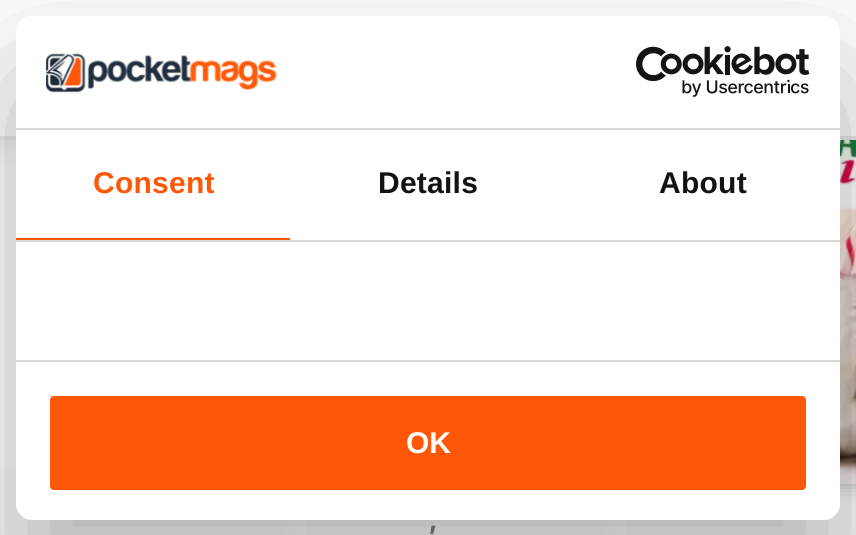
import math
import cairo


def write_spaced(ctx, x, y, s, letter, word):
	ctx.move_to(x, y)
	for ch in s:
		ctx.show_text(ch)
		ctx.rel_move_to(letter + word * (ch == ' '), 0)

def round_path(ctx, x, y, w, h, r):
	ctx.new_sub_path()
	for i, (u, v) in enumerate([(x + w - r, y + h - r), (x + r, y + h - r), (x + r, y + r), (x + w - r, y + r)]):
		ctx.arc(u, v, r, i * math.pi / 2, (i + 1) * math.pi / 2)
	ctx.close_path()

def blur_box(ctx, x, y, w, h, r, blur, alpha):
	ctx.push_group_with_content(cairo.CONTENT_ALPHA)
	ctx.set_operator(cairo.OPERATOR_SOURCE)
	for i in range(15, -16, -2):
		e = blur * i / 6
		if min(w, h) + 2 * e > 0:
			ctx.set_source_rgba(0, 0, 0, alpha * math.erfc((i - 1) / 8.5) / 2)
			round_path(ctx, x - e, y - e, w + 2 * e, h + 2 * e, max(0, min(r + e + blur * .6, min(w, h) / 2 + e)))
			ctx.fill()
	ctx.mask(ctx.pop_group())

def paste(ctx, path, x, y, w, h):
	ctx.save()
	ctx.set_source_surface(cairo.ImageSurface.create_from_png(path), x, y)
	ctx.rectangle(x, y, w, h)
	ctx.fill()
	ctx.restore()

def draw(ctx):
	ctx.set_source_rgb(1, 1, 1)
	ctx.paint()
	gradient = cairo.LinearGradient(428, 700, 428, 68)
	gradient.add_color_stop_rgba(0, 0.976, 0.976, 0.976, 1)
	gradient.add_color_stop_rgba(0.63, 1, 1, 1, 1)
	gradient.add_color_stop_rgba(1, 1, 1, 1, 1)
	ctx.set_source(gradient)
	ctx.rectangle(0, 468, 856, 67)
	ctx.fill()
	ctx.set_source_rgb(0, 0, 0)
	blur_box(ctx, 680, 88, 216, 396, 10, 10, 0.3)
	paste(ctx, 'media/3.png', 840, 140, 16, 344)
	blur_box(ctx, -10, -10, 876, 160, 0, 10, 0.05)
	ctx.set_source_rgb(1, 1, 1)
	ctx.rectangle(0, 0, 856, 136)
	ctx.fill()
	ctx.set_source_rgb(0.918, 0.918, 0.918)
	ctx.rectangle(0, 136, 856, 4)
	ctx.fill()
	gradient = cairo.LinearGradient(306, 535, 246, 535)
	gradient.add_color_stop_rgba(0, 1, 1, 1, 1)
	gradient.add_color_stop_rgba(1, 1, 1, 1, 0)
	ctx.set_source(gradient)
	ctx.rectangle(285, 520, 21, 15)
	ctx.fill()
	gradient = cairo.LinearGradient(626, 535, 566, 535)
	gradient.add_color_stop_rgba(0, 1, 1, 1, 1)
	gradient.add_color_stop_rgba(1, 1, 1, 1, 0)
	ctx.set_source(gradient)
	ctx.rectangle(605, 520, 21, 15)
	ctx.fill()
	ctx.set_source_rgb(0, 0, 0)
	blur_box(ctx, 16, 80, 824, 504, 16, 68, 0.3)
	ctx.set_source_rgb(1, 1, 1)
	round_path(ctx, 16, 16, 824, 504, 16)
	ctx.fill()
	ctx.set_source_rgb(0.839, 0.839, 0.839)
	ctx.rectangle(16, 128, 824, 2)
	ctx.fill()
	paste(ctx, 'media/1.png', 46, 53, 231, 40)
	paste(ctx, 'media/2.png', 636, 46, 174, 51)
	ctx.rectangle(16, 240, 824, 2)
	ctx.fill()
	ctx.set_source_rgb(1, 0.341, 0.035)
	ctx.rectangle(16, 238, 274, 2)
	ctx.fill()
	ctx.select_font_face('Liberation Sans', cairo.FONT_SLANT_NORMAL, cairo.FONT_WEIGHT_BOLD)
	ctx.set_font_size(30)
	write_spaced(ctx, 93, 193, 'Consent', 0.25, 0)
	ctx.set_source_rgb(0.078, 0.078, 0.078)
	write_spaced(ctx, 378, 193, 'Details', 0.25, 0)
	write_spaced(ctx, 659, 193, 'About', 0.25, 0)
	ctx.set_source_rgb(0.839, 0.839, 0.839)
	ctx.rectangle(16, 360, 824, 2)
	ctx.fill()
	ctx.set_source_rgb(1, 0.341, 0.035)
	round_path(ctx, 48, 394, 760, 98, 6)
	ctx.fill_preserve()
	ctx.set_source_rgb(1, 1, 1)
	ctx.set_line_width(4)
	ctx.stroke()
	ctx.move_to(406, 453)
	ctx.show_text('OK')
	ctx.select_font_face('Inter', cairo.FONT_SLANT_NORMAL, cairo.FONT_WEIGHT_BOLD)
	ctx.set_font_size(28)
	ctx.set_source_rgb(0.392, 0.392, 0.392)
	ctx.move_to(428, 546)
	ctx.show_text('’')


surface = cairo.ImageSurface(cairo.FORMAT_RGB24, 856, 535)
ctx = cairo.Context(surface)
options = cairo.FontOptions()
options.set_hint_metrics(cairo.HINT_METRICS_OFF)
options.set_hint_style(cairo.HINT_STYLE_NONE)
ctx.set_font_options(options)
ctx.set_miter_limit(4)
draw(ctx)
surface.write_to_png('image.png')
